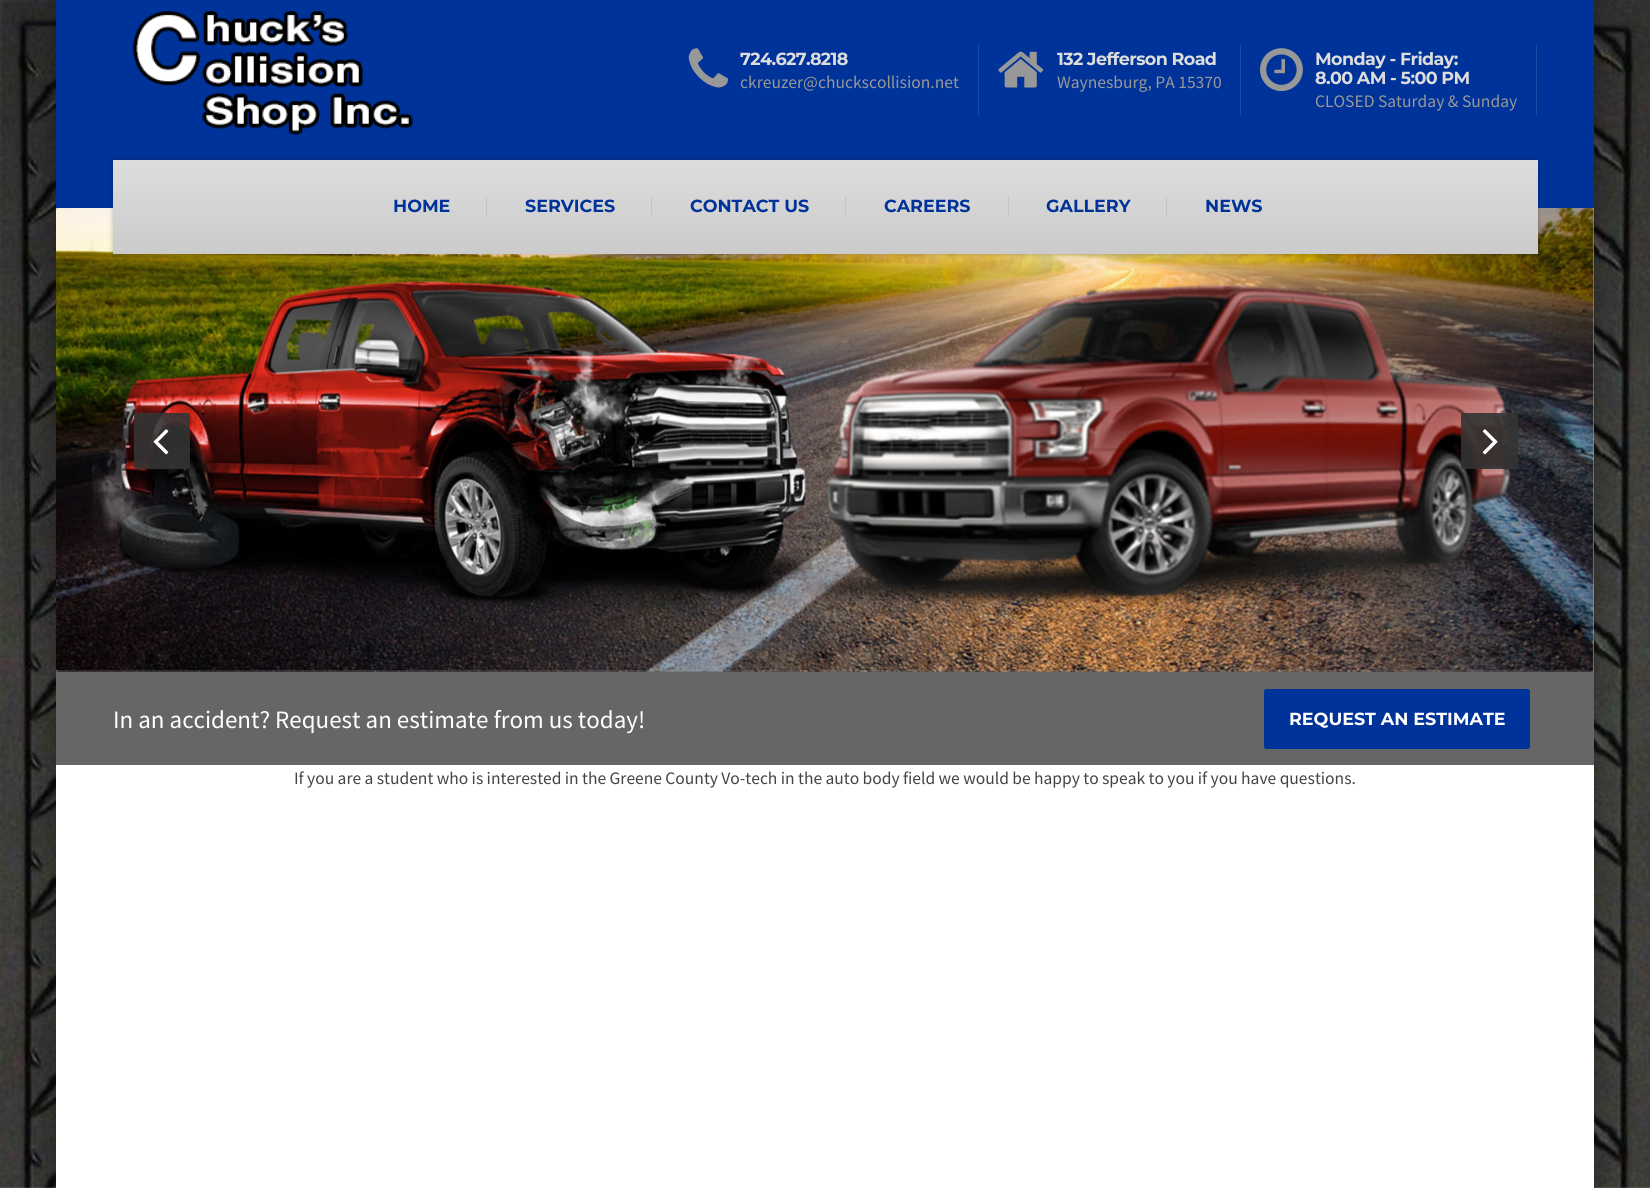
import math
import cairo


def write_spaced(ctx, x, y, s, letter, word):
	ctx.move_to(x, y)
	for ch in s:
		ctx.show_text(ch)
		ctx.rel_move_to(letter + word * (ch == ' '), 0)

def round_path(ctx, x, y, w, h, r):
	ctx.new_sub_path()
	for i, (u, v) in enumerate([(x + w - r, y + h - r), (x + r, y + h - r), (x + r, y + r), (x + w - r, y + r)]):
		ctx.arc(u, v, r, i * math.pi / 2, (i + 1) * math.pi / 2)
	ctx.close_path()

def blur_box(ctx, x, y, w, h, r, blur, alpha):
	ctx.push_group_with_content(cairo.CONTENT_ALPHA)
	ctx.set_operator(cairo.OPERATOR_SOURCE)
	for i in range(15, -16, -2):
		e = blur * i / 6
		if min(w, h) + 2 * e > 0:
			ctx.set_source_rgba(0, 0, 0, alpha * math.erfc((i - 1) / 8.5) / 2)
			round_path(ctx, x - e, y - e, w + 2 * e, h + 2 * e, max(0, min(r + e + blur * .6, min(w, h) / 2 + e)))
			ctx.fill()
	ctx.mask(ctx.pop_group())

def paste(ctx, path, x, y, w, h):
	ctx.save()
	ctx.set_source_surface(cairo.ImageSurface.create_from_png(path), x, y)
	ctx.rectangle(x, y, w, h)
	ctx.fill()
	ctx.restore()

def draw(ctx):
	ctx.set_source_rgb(1, 1, 1)
	ctx.paint()
	paste(ctx, 'media/1.png', 0, 0, 1650, 1188)
	ctx.set_source_rgb(0, 0, 0)
	blur_box(ctx, 56, 0, 1538, 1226, 0, 12.5, 0.33)
	ctx.set_source_rgb(1, 1, 1)
	ctx.rectangle(56, 765, 1538, 423)
	ctx.fill()
	ctx.set_source_rgb(0, 0.2, 0.6)
	ctx.rectangle(56, 0, 1538, 208)
	ctx.fill()
	paste(ctx, 'media/2.png', 132, 11, 281, 125)
	ctx.set_source_rgb(0.118, 0.294, 0.647)
	ctx.rectangle(978, 45, 1, 70)
	ctx.fill()
	paste(ctx, 'media/3.png', 688, 48, 40, 40)
	ctx.select_font_face('Montserrat Thin')
	ctx.set_font_size(17.5)
	ctx.set_source_rgb(0.867, 0.867, 0.867)
	write_spaced(ctx, 740, 65, '724.627.8218', -0.6, 0)
	ctx.select_font_face('Source Sans Pro')
	ctx.set_source_rgb(0.596, 0.596, 0.596)
	ctx.move_to(740, 88)
	ctx.show_text('ckreuzer@chuckscollision.net')
	ctx.set_source_rgb(0.118, 0.294, 0.647)
	ctx.rectangle(1240, 45, 1, 70)
	ctx.fill()
	paste(ctx, 'media/4.png', 998, 51, 46, 37)
	ctx.select_font_face('Montserrat Thin')
	ctx.set_source_rgb(0.867, 0.867, 0.867)
	write_spaced(ctx, 1057, 65, '132 Jefferson Road', -0.6, 0)
	ctx.select_font_face('Source Sans Pro')
	ctx.set_source_rgb(0.596, 0.596, 0.596)
	ctx.move_to(1057, 88)
	ctx.show_text('Waynesburg, PA 15370')
	ctx.set_source_rgb(0.118, 0.294, 0.647)
	ctx.rectangle(1536, 45, 1, 70)
	ctx.fill()
	paste(ctx, 'media/5.png', 1260, 48, 43, 44)
	ctx.select_font_face('Montserrat Thin')
	ctx.set_source_rgb(0.867, 0.867, 0.867)
	write_spaced(ctx, 1315, 65, 'Monday - Friday:', -0.6, 0)
	write_spaced(ctx, 1315, 84, '8.00 AM - 5:00 PM', -0.6, 0)
	ctx.select_font_face('Source Sans Pro')
	ctx.set_source_rgb(0.596, 0.596, 0.596)
	ctx.move_to(1315, 107)
	ctx.show_text('CLOSED Saturday & Sunday')
	ctx.set_source_rgb(0.6, 0.6, 0.6)
	ctx.rectangle(56, 208, 1538, 463)
	ctx.fill()
	ctx.set_source_rgb(0.4, 0.4, 0.4)
	ctx.rectangle(56, 671, 1538, 94)
	ctx.fill()
	paste(ctx, 'media/6.png', 56, 208, 1538, 464)
	ctx.set_source_rgb(0, 0, 0)
	blur_box(ctx, 113, 160, 1425, 94, 0, 2.5, 0.25)
	gradient = cairo.LinearGradient(825, 160, 825, 254)
	gradient.add_color_stop_rgba(0, 0.867, 0.867, 0.867, 1)
	gradient.add_color_stop_rgba(1, 0.796, 0.796, 0.796, 1)
	ctx.set_source(gradient)
	ctx.rectangle(113, 160, 1425, 94)
	ctx.fill()
	ctx.select_font_face('Montserrat Thin')
	ctx.set_source_rgb(0, 0.2, 0.6)
	ctx.move_to(393, 212)
	ctx.show_text('HOME')
	ctx.set_source_rgba(0, 0, 0, 0.08)
	ctx.rectangle(486, 196, 1, 19)
	ctx.fill()
	ctx.set_source_rgb(0, 0.2, 0.6)
	ctx.move_to(525, 212)
	ctx.show_text('SERVICES')
	ctx.set_source_rgba(0, 0, 0, 0.08)
	ctx.rectangle(651, 196, 1, 19)
	ctx.fill()
	ctx.set_source_rgb(0, 0.2, 0.6)
	ctx.move_to(690, 212)
	ctx.show_text('CONTACT US')
	ctx.set_source_rgba(0, 0, 0, 0.08)
	ctx.rectangle(845, 196, 1, 19)
	ctx.fill()
	ctx.set_source_rgb(0, 0.2, 0.6)
	ctx.move_to(884, 212)
	ctx.show_text('CAREERS')
	ctx.set_source_rgba(0, 0, 0, 0.08)
	ctx.rectangle(1008, 196, 1, 19)
	ctx.fill()
	ctx.set_source_rgb(0, 0.2, 0.6)
	ctx.move_to(1046, 212)
	ctx.show_text('GALLERY')
	ctx.set_source_rgba(0, 0, 0, 0.08)
	ctx.rectangle(1166, 196, 1, 19)
	ctx.fill()
	ctx.set_source_rgb(0, 0.2, 0.6)
	ctx.move_to(1205, 212)
	ctx.show_text('NEWS')
	ctx.set_source_rgba(0.2, 0.2, 0.2, 0.9)
	round_path(ctx, 134, 413, 56, 56, 2.5)
	ctx.fill()
	paste(ctx, 'media/7.png', 153, 429, 16, 26)
	round_path(ctx, 1461, 413, 57, 56, 2.5)
	ctx.fill()
	paste(ctx, 'media/8.png', 1482, 429, 16, 26)
	ctx.select_font_face('Source Sans Pro')
	ctx.set_font_size(25)
	ctx.set_source_rgb(1, 1, 1)
	ctx.move_to(113, 728)
	ctx.show_text('In an accident? Request an estimate from us today!')
	ctx.set_source_rgb(0, 0.2, 0.6)
	round_path(ctx, 1265.5, 690.5, 263, 57, 1)
	ctx.fill_preserve()
	ctx.set_line_width(3)
	ctx.stroke()
	ctx.select_font_face('Montserrat Thin')
	ctx.set_font_size(17.5)
	ctx.set_source_rgb(1, 1, 1)
	ctx.move_to(1289, 725)
	ctx.show_text('REQUEST AN ESTIMATE')
	ctx.select_font_face('Source Sans Pro')
	ctx.set_source_rgb(0.267, 0.267, 0.267)
	write_spaced(ctx, 294, 784, 'If you are a student who is interested in the Greene County Vo-tech in the auto body field we would be happy to speak to you if you have questions.', 0, -0.15)


surface = cairo.ImageSurface(cairo.FORMAT_RGB24, 1650, 1188)
ctx = cairo.Context(surface)
options = cairo.FontOptions()
options.set_hint_metrics(cairo.HINT_METRICS_OFF)
options.set_hint_style(cairo.HINT_STYLE_NONE)
ctx.set_font_options(options)
ctx.set_miter_limit(4)
draw(ctx)
surface.write_to_png('image.png')
